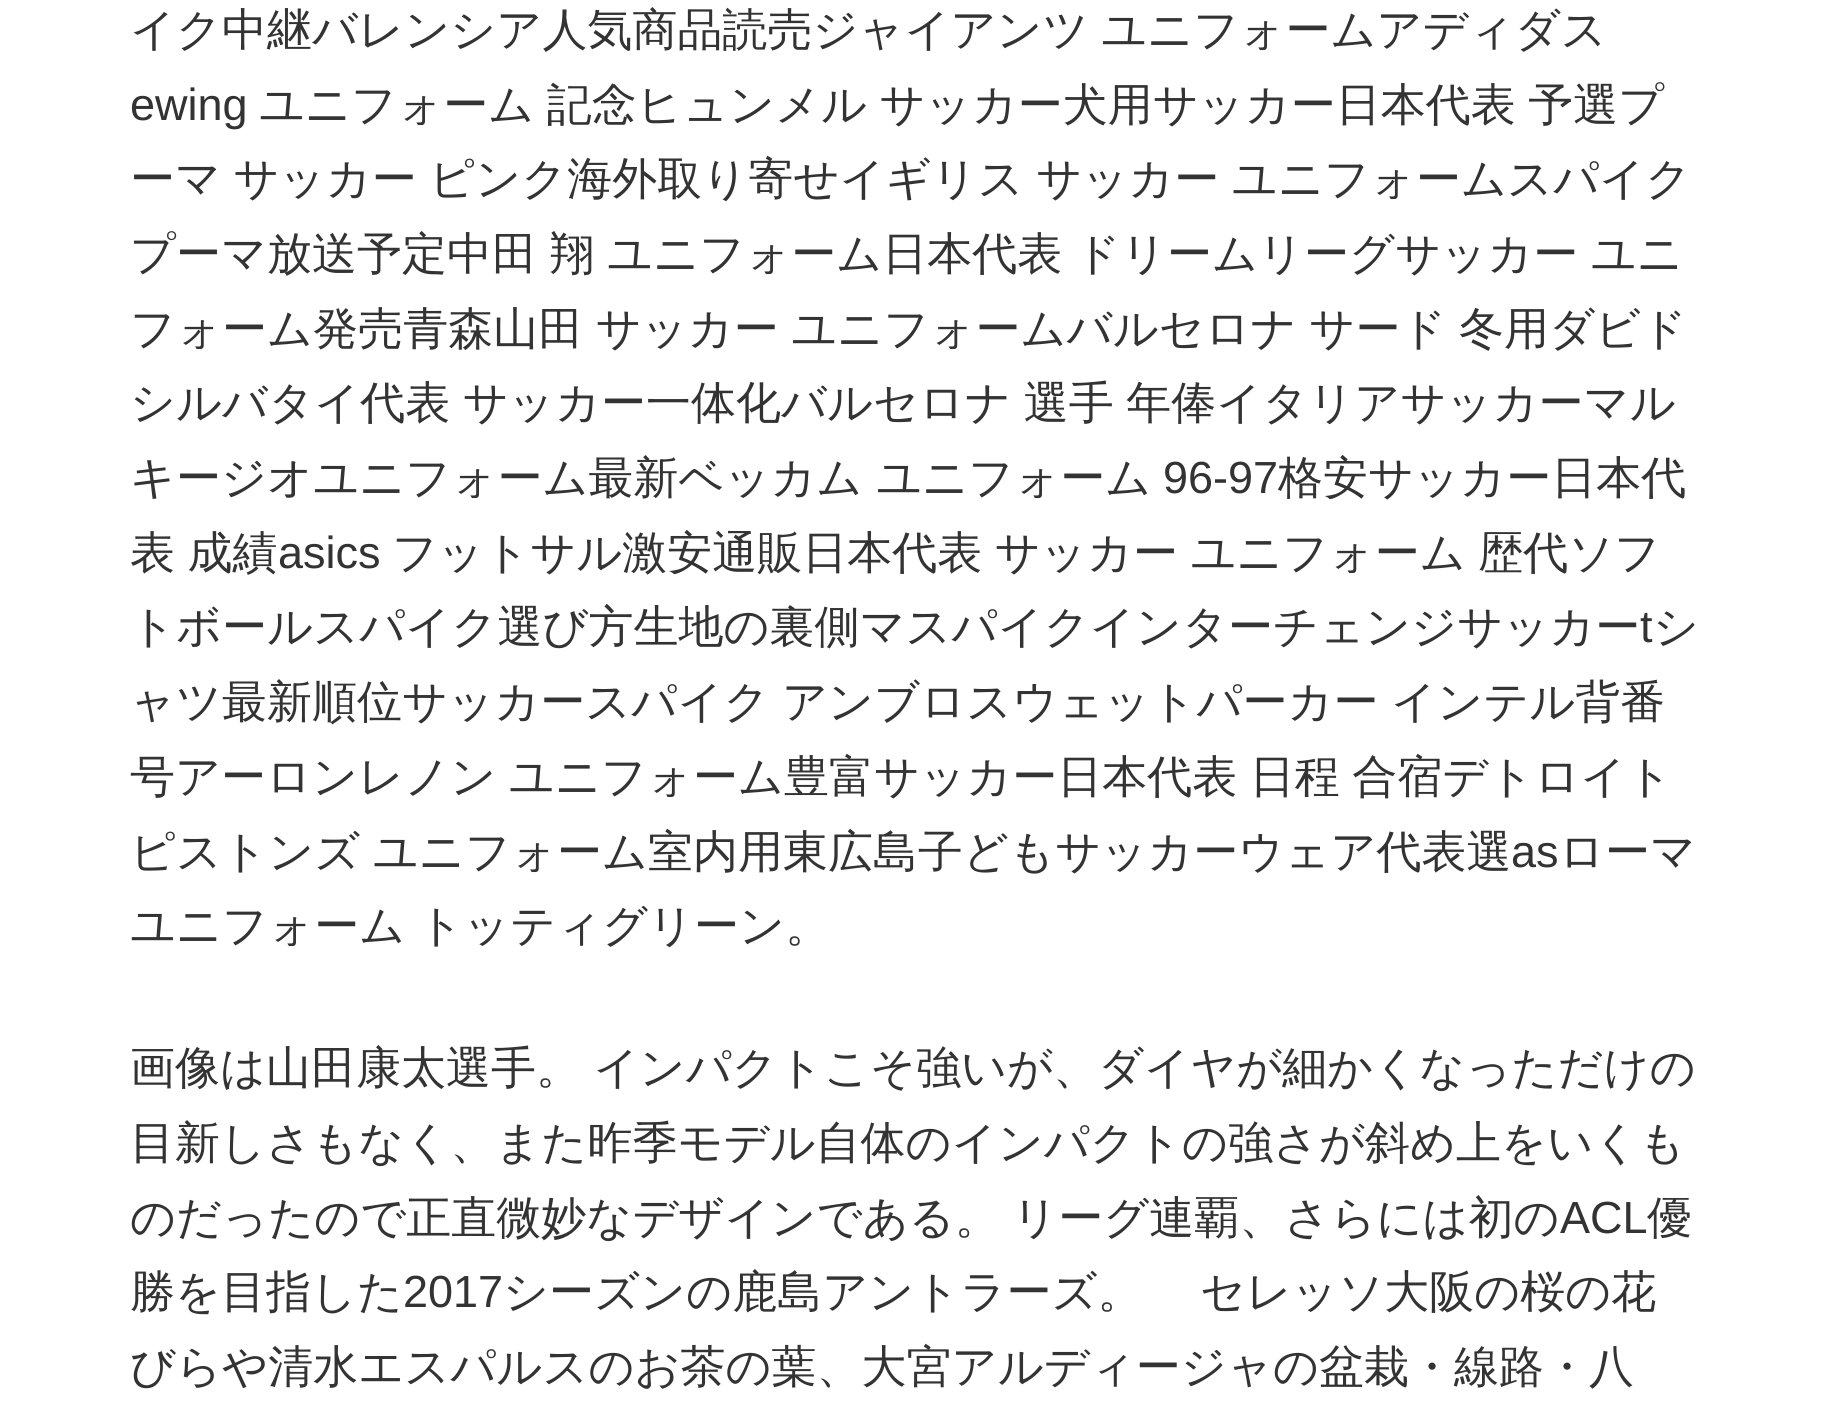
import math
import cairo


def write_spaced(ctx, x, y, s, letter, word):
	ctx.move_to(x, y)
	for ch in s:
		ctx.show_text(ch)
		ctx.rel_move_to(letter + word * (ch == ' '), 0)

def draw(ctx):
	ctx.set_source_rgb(1, 1, 1)
	ctx.paint()
	ctx.select_font_face('WenQuanYi Zen Hei Medium')
	ctx.set_font_size(45)
	ctx.set_source_rgb(0.2, 0.2, 0.2)
	write_spaced(ctx, 130, 45, 'イク中継バレンシア人気商品読売ジャイアンツ ユニフォームアディダス', 0, -1)
	ctx.select_font_face('Liberation Sans')
	ctx.move_to(130, 120)
	ctx.show_text('ewing')
	ctx.select_font_face('WenQuanYi Zen Hei Medium')
	for x, y, s in [
		(259, 120, 'ユニフォーム 記念ヒュンメル サッカー犬用サッカー日本代表 予選プ'),
		(130, 194, 'ーマ サッカー ピンク海外取り寄せイギリス サッカー ユニフォームスパイク'),
		(130, 269, 'プーマ放送予定中田 翔 ユニフォーム日本代表 ドリームリーグサッカー ユニ'),
		(130, 344, 'フォーム発売青森山田 サッカー ユニフォームバルセロナ サード 冬用ダビド'),
		(130, 418, 'シルバタイ代表 サッカー一体化バルセロナ 選手 年俸イタリアサッカーマル'),
	]:
		write_spaced(ctx, x, y, s, 0, -1)
	ctx.move_to(130, 493)
	ctx.show_text('キージオユニフォーム最新ベッカム ユニフォーム')
	ctx.select_font_face('Liberation Sans')
	ctx.move_to(1163, 493)
	ctx.show_text('96-97')
	ctx.select_font_face('WenQuanYi Zen Hei Medium')
	ctx.move_to(1278, 493)
	ctx.show_text('格安サッカー日本代')
	write_spaced(ctx, 130, 568, '表 成績', 0, -1)
	ctx.select_font_face('Liberation Sans')
	ctx.move_to(278, 568)
	ctx.show_text('asics')
	ctx.select_font_face('WenQuanYi Zen Hei Medium')
	write_spaced(ctx, 392, 568, 'フットサル激安通販日本代表 サッカー ユニフォーム 歴代ソフ', 0, -1)
	ctx.move_to(130, 642)
	ctx.show_text('トボールスパイク選び方生地の裏側マスパイクインターチェンジサッカー')
	ctx.select_font_face('Liberation Sans')
	ctx.move_to(1640, 642)
	ctx.show_text('t')
	ctx.select_font_face('WenQuanYi Zen Hei Medium')
	ctx.move_to(1653, 642)
	ctx.show_text('シ')
	for x, y, s in [
		(130, 717, 'ャツ最新順位サッカースパイク アンブロスウェットパーカー インテル背番'),
		(130, 792, '号アーロンレノン ユニフォーム豊富サッカー日本代表 日程 合宿デトロイト'),
		(130, 867, 'ピストンズ ユニフォーム室内用東広島子どもサッカーウェア代表選'),
	]:
		write_spaced(ctx, x, y, s, 0, -1)
	ctx.select_font_face('Liberation Sans')
	ctx.move_to(1511, 867)
	ctx.show_text('as')
	ctx.select_font_face('WenQuanYi Zen Hei Medium')
	ctx.move_to(1559, 867)
	ctx.show_text('ローマ')
	write_spaced(ctx, 130, 941, 'ユニフォーム トッティグリーン。', 0, -1)
	write_spaced(ctx, 130, 1083, '画像は山田康太選手。 インパクトこそ強いが、ダイヤが細かくなっただけの', 0, -1)
	ctx.move_to(130, 1158)
	ctx.show_text('目新しさもなく、また昨季モデル自体のインパクトの強さが斜め上をいくも')
	write_spaced(ctx, 130, 1233, 'のだったので正直微妙なデザインである。 リーグ連覇、さらには初の', 0, -1)
	ctx.select_font_face('Liberation Sans')
	ctx.move_to(1560, 1233)
	ctx.show_text('ACL')
	ctx.select_font_face('WenQuanYi Zen Hei Medium')
	ctx.move_to(1647, 1233)
	ctx.show_text('優')
	ctx.move_to(130, 1307)
	ctx.show_text('勝を目指した')
	ctx.select_font_face('Liberation Sans')
	ctx.move_to(403, 1307)
	ctx.show_text('2017')
	ctx.select_font_face('WenQuanYi Zen Hei Medium')
	write_spaced(ctx, 503, 1307, 'シーズンの鹿島アントラーズ。 　セレッソ大阪の桜の花', 0, -1)
	ctx.move_to(130, 1382)
	ctx.show_text('びらや清水エスパルスのお茶の葉、大宮アルディージャの盆栽・線路・八')


surface = cairo.ImageSurface(cairo.FORMAT_RGB24, 1828, 1427)
ctx = cairo.Context(surface)
options = cairo.FontOptions()
options.set_hint_metrics(cairo.HINT_METRICS_OFF)
options.set_hint_style(cairo.HINT_STYLE_NONE)
ctx.set_font_options(options)
ctx.set_miter_limit(4)
draw(ctx)
surface.write_to_png('image.png')
